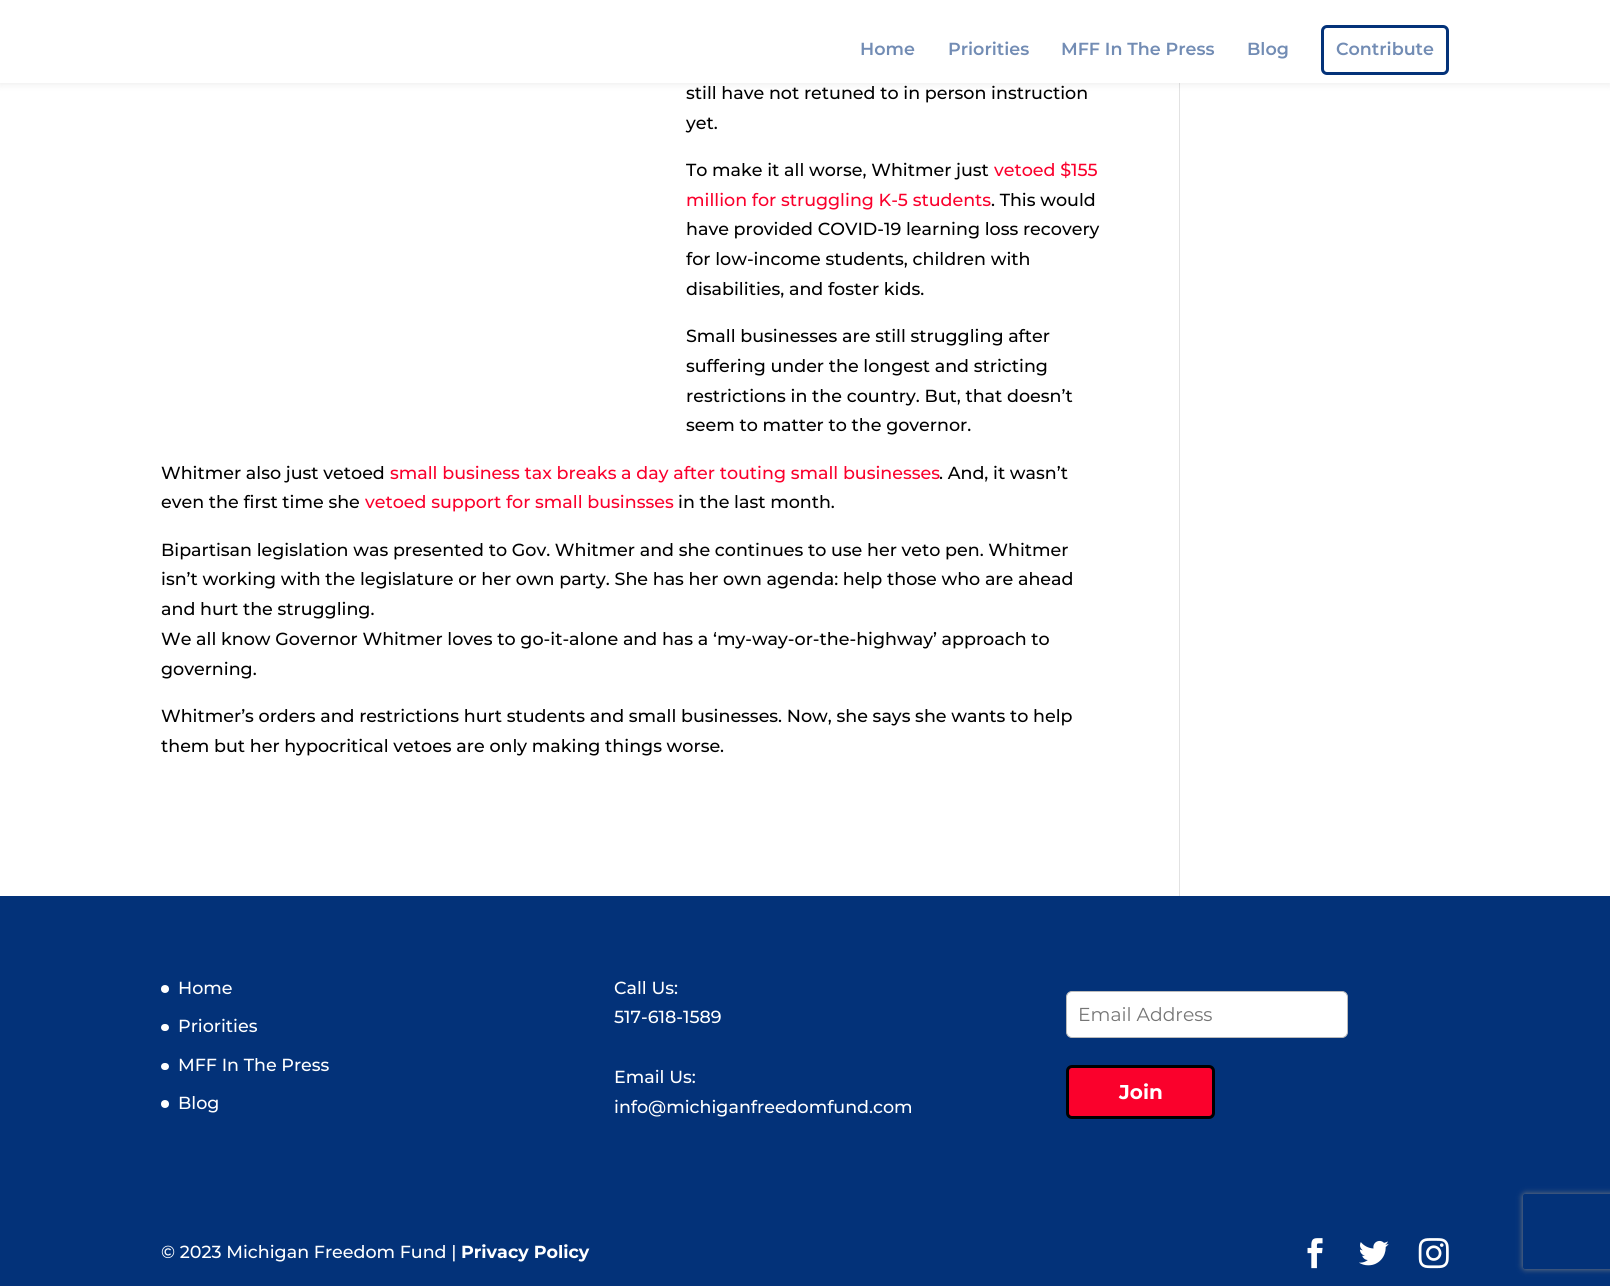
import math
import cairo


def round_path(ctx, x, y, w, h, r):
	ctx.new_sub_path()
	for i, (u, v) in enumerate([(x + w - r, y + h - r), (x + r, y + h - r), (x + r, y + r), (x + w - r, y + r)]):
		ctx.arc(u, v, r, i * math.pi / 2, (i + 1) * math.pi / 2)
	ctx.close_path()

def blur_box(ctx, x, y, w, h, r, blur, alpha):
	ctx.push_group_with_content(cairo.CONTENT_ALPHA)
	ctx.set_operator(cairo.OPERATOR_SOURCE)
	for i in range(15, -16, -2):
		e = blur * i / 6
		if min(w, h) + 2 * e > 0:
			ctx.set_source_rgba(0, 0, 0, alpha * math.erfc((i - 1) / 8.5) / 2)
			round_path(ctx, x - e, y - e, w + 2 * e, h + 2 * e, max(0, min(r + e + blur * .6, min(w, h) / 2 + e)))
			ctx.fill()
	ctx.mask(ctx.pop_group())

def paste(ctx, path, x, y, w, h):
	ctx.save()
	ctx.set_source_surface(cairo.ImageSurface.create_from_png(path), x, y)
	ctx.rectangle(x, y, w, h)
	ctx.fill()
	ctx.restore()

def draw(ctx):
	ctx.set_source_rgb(1, 1, 1)
	ctx.paint()
	ctx.set_source_rgb(0.886, 0.886, 0.886)
	ctx.rectangle(1179, 83, 1, 813)
	ctx.fill()
	ctx.set_source_rgb(0, 0, 0)
	blur_box(ctx, 0, 0, 1610, 83, 0, 4.5, 0.1)
	ctx.set_source_rgb(1, 1, 1)
	ctx.rectangle(0, 0, 1610, 83)
	ctx.fill()
	ctx.select_font_face('Montserrat SemiBold')
	ctx.set_font_size(17.5)
	ctx.set_source_rgb(0.447, 0.549, 0.706)
	for x, y, s in [
		(860, 55, 'Home'),
		(948, 55, 'Priorities'),
		(1061, 55, 'MFF In The Press'),
		(1247, 55, 'Blog'),
	]:
		ctx.move_to(x, y)
		ctx.show_text(s)
	round_path(ctx, 1322.5, 26.5, 125, 47, 4.5)
	ctx.set_source_rgb(0.012, 0.196, 0.475)
	ctx.set_line_width(3)
	ctx.stroke()
	ctx.set_source_rgb(0.447, 0.549, 0.706)
	ctx.move_to(1336, 55)
	ctx.show_text('Contribute')
	ctx.select_font_face('Montserrat Medium')
	ctx.set_source_rgb(0, 0, 0)
	for x, y, s in [
		(686, 99, 'still have not retuned to in person instruction'),
		(686, 129, 'yet.'),
		(686, 176, 'To make it all worse, Whitmer just'),
	]:
		ctx.move_to(x, y)
		ctx.show_text(s)
	ctx.set_source_rgb(0.98, 0, 0.173)
	ctx.move_to(994, 176)
	ctx.show_text('vetoed $155')
	ctx.move_to(686, 206)
	ctx.show_text('million for struggling K-5 students')
	ctx.set_source_rgb(0, 0, 0)
	for x, y, s in [
		(991, 206, '. This would'),
		(686, 235, 'have provided COVID-19 learning loss recovery'),
		(686, 265, 'for low-income students, children with'),
		(686, 295, 'disabilities, and foster kids.'),
		(686, 342, 'Small businesses are still struggling after'),
		(686, 372, 'suffering under the longest and stricting'),
		(686, 402, 'restrictions in the country. But, that doesn’t'),
		(686, 431, 'seem to matter to the governor.'),
		(161, 479, 'Whitmer also just vetoed'),
	]:
		ctx.move_to(x, y)
		ctx.show_text(s)
	ctx.set_source_rgb(0.98, 0, 0.173)
	ctx.move_to(390, 479)
	ctx.show_text('small business tax breaks a day after touting small businesses')
	ctx.set_source_rgb(0, 0, 0)
	ctx.move_to(939, 479)
	ctx.show_text('. And, it wasn’t')
	ctx.move_to(161, 508)
	ctx.show_text('even the first time she')
	ctx.set_source_rgb(0.98, 0, 0.173)
	ctx.move_to(365, 508)
	ctx.show_text('vetoed support for small businsses')
	ctx.set_source_rgb(0, 0, 0)
	for x, y, s in [
		(678, 508, 'in the last month.'),
		(161, 556, 'Bipartisan legislation was presented to Gov. Whitmer and she continues to use her veto pen. Whitmer'),
		(161, 585, 'isn’t working with the legislature or her own party. She has her own agenda: help those who are ahead'),
		(161, 615, 'and hurt the struggling.'),
		(161, 645, 'We all know Governor Whitmer loves to go-it-alone and has a ‘my-way-or-the-highway’ approach to'),
		(161, 675, 'governing.'),
		(161, 722, 'Whitmer’s orders and restrictions hurt students and small businesses. Now, she says she wants to help'),
		(161, 752, 'them but her hypocritical vetoes are only making things worse.'),
	]:
		ctx.move_to(x, y)
		ctx.show_text(s)
	ctx.set_source_rgb(0.012, 0.196, 0.475)
	ctx.rectangle(0, 896, 1610, 390)
	ctx.fill()
	ctx.set_source_rgb(1, 1, 1)
	ctx.arc(165, 989, 4, 0, 2 * math.pi)
	ctx.fill()
	ctx.move_to(178, 994)
	ctx.show_text('Home')
	round_path(ctx, 161, 1024, 8, 7, 3.5)
	ctx.fill()
	ctx.move_to(178, 1032)
	ctx.show_text('Priorities')
	round_path(ctx, 161, 1063, 8, 7, 3.5)
	ctx.fill()
	ctx.move_to(178, 1071)
	ctx.show_text('MFF In The Press')
	ctx.new_path()
	ctx.arc(165, 1104, 4, 0, 2 * math.pi)
	ctx.fill()
	for x, y, s in [
		(178, 1109, 'Blog'),
		(614, 994, 'Call Us:'),
		(614, 1023, '517-618-1589'),
		(614, 1083, 'Email Us:'),
		(614, 1113, 'info@michiganfreedomfund.com'),
	]:
		ctx.move_to(x, y)
		ctx.show_text(s)
	round_path(ctx, 1066.5, 991.5, 281, 46, 5.5)
	ctx.fill_preserve()
	ctx.set_source_rgb(0.733, 0.733, 0.733)
	ctx.set_line_width(1)
	ctx.stroke()
	ctx.select_font_face('Montserrat')
	ctx.set_font_size(18.75)
	ctx.set_source_rgb(0.459, 0.459, 0.459)
	ctx.move_to(1078, 1021)
	ctx.show_text('Email Address')
	ctx.set_source_rgb(0.98, 0.004, 0.173)
	round_path(ctx, 1067.5, 1066.5, 146, 51, 4.5)
	ctx.fill_preserve()
	ctx.set_source_rgb(0, 0, 0)
	ctx.set_line_width(3)
	ctx.stroke()
	ctx.select_font_face('Montserrat', cairo.FONT_SLANT_NORMAL, cairo.FONT_WEIGHT_BOLD)
	ctx.set_font_size(20)
	ctx.set_source_rgb(1, 1, 1)
	ctx.move_to(1119, 1099)
	ctx.show_text('Join')
	ctx.select_font_face('Montserrat Medium')
	ctx.set_font_size(17.5)
	ctx.move_to(161, 1258)
	ctx.show_text('© 2023 Michigan Freedom Fund |')
	ctx.select_font_face('Montserrat', cairo.FONT_SLANT_NORMAL, cairo.FONT_WEIGHT_BOLD)
	ctx.move_to(461, 1258)
	ctx.show_text('Privacy Policy')
	paste(ctx, 'media/1.png', 1307, 1238, 16, 31)
	paste(ctx, 'media/2.png', 1359, 1240, 30, 26)
	paste(ctx, 'media/3.png', 1418, 1238, 31, 31)
	ctx.save()
	ctx.set_fill_rule(cairo.FILL_RULE_EVEN_ODD)
	ctx.new_path()
	ctx.move_to(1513, 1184)
	ctx.line_to(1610, 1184)
	ctx.line_to(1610, 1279)
	ctx.line_to(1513, 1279)
	ctx.close_path()
	ctx.move_to(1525.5, 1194)
	ctx.line_to(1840.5, 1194)
	ctx.curve_to(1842, 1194, 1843, 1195, 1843, 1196.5)
	ctx.line_to(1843, 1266.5)
	ctx.curve_to(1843, 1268, 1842, 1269, 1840.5, 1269)
	ctx.line_to(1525.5, 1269)
	ctx.curve_to(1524, 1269, 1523, 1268, 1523, 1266.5)
	ctx.line_to(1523, 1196.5)
	ctx.curve_to(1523, 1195, 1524, 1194, 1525.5, 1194)
	ctx.close_path()
	ctx.clip()
	ctx.set_source_rgb(0.502, 0.502, 0.502)
	blur_box(ctx, 1523, 1194, 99, 75, 2.5, 3, 1)
	ctx.restore()


surface = cairo.ImageSurface(cairo.FORMAT_RGB24, 1610, 1286)
ctx = cairo.Context(surface)
options = cairo.FontOptions()
options.set_hint_metrics(cairo.HINT_METRICS_OFF)
options.set_hint_style(cairo.HINT_STYLE_NONE)
ctx.set_font_options(options)
ctx.set_miter_limit(4)
draw(ctx)
surface.write_to_png('image.png')
